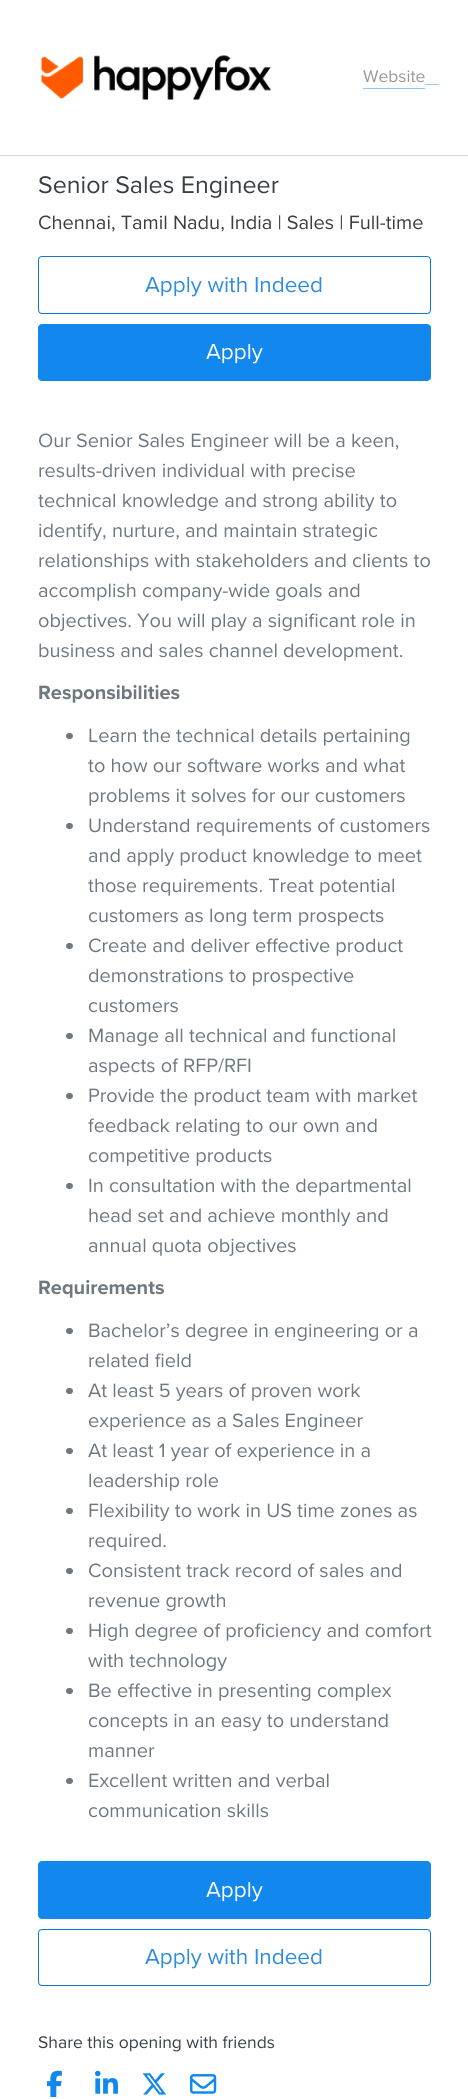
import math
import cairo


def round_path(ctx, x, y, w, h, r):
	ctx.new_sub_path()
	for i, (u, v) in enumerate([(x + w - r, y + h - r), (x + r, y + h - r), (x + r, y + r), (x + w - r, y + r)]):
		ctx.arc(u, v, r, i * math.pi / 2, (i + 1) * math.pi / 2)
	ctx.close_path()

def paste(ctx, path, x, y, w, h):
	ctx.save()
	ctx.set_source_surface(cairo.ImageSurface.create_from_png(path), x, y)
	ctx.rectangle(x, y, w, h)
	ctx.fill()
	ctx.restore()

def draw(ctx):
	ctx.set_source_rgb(1, 1, 1)
	ctx.paint()
	ctx.set_source_rgb(0.851, 0.867, 0.882)
	ctx.rectangle(0, 155, 468, 1)
	ctx.fill()
	paste(ctx, 'media/1.png', 40, 55, 231, 45)
	ctx.select_font_face('Proxima Nova')
	ctx.set_font_size(17.5)
	ctx.set_source_rgb(0.6, 0.6, 0.6)
	ctx.move_to(363, 82)
	ctx.show_text('Website')
	ctx.set_source_rgb(0.537, 0.784, 1)
	ctx.rectangle(363, 88, 62, 1)
	ctx.fill()
	ctx.rectangle(425, 84, 14, 1)
	ctx.fill()
	ctx.set_font_size(25)
	ctx.set_source_rgb(0.22, 0.247, 0.267)
	ctx.move_to(38, 193)
	ctx.show_text('Senior Sales Engineer')
	ctx.set_font_size(20)
	ctx.move_to(38, 229)
	ctx.show_text('Chennai, Tamil Nadu, India | Sales | Full-time')
	round_path(ctx, 38.5, 256.5, 392, 57, 3.5)
	ctx.set_source_rgb(0.059, 0.467, 0.824)
	ctx.set_line_width(1)
	ctx.stroke()
	ctx.set_font_size(22.5)
	ctx.set_source_rgb(0.184, 0.549, 0.867)
	ctx.move_to(145, 292)
	ctx.show_text('Apply with Indeed')
	ctx.set_source_rgb(0.071, 0.533, 0.937)
	round_path(ctx, 38.5, 324.5, 392, 56, 3.5)
	ctx.fill_preserve()
	ctx.stroke()
	ctx.set_source_rgb(1, 1, 1)
	ctx.move_to(206, 359)
	ctx.show_text('Apply')
	ctx.set_font_size(20)
	ctx.set_source_rgb(0.431, 0.471, 0.506)
	for x, y, s in [
		(38, 447, 'Our Senior Sales Engineer will be a keen,'),
		(38, 477, 'results-driven individual with precise'),
		(38, 507, 'technical knowledge and strong ability to'),
		(38, 537, 'identify, nurture, and maintain strategic'),
		(38, 567, 'relationships with stakeholders and clients to'),
		(38, 597, 'accomplish company-wide goals and'),
		(38, 627, 'objectives. You will play a significant role in'),
		(38, 657, 'business and sales channel development.'),
	]:
		ctx.move_to(x, y)
		ctx.show_text(s)
	ctx.select_font_face('Proxima Nova', cairo.FONT_SLANT_NORMAL, cairo.FONT_WEIGHT_BOLD)
	ctx.move_to(38, 699)
	ctx.show_text('Responsibilities')
	round_path(ctx, 66, 733, 7, 6, 3)
	ctx.fill()
	ctx.select_font_face('Proxima Nova')
	for x, y, s in [
		(88, 742, 'Learn the technical details pertaining'),
		(88, 772, 'to how our software works and what'),
		(88, 802, 'problems it solves for our customers'),
	]:
		ctx.move_to(x, y)
		ctx.show_text(s)
	round_path(ctx, 66, 823, 7, 6, 3)
	ctx.fill()
	for x, y, s in [
		(88, 832, 'Understand requirements of customers'),
		(88, 862, 'and apply product knowledge to meet'),
		(88, 892, 'those requirements. Treat potential'),
		(88, 922, 'customers as long term prospects'),
	]:
		ctx.move_to(x, y)
		ctx.show_text(s)
	round_path(ctx, 66, 943, 7, 6, 3)
	ctx.fill()
	for x, y, s in [
		(88, 952, 'Create and deliver effective product'),
		(88, 982, 'demonstrations to prospective'),
		(88, 1012, 'customers'),
	]:
		ctx.move_to(x, y)
		ctx.show_text(s)
	round_path(ctx, 66, 1033, 7, 6, 3)
	ctx.fill()
	ctx.move_to(88, 1042)
	ctx.show_text('Manage all technical and functional')
	ctx.move_to(88, 1072)
	ctx.show_text('aspects of RFP/RFI')
	round_path(ctx, 66, 1093, 7, 6, 3)
	ctx.fill()
	for x, y, s in [
		(88, 1102, 'Provide the product team with market'),
		(88, 1132, 'feedback relating to our own and'),
		(88, 1162, 'competitive products'),
	]:
		ctx.move_to(x, y)
		ctx.show_text(s)
	round_path(ctx, 66, 1183, 7, 6, 3)
	ctx.fill()
	for x, y, s in [
		(88, 1192, 'In consultation with the departmental'),
		(88, 1222, 'head set and achieve monthly and'),
		(88, 1252, 'annual quota objectives'),
	]:
		ctx.move_to(x, y)
		ctx.show_text(s)
	ctx.select_font_face('Proxima Nova', cairo.FONT_SLANT_NORMAL, cairo.FONT_WEIGHT_BOLD)
	ctx.move_to(38, 1294)
	ctx.show_text('Requirements')
	round_path(ctx, 66, 1328, 7, 6, 3)
	ctx.fill()
	ctx.select_font_face('Proxima Nova')
	ctx.move_to(88, 1337)
	ctx.show_text('Bachelor’s degree in engineering or a')
	ctx.move_to(88, 1367)
	ctx.show_text('related field')
	round_path(ctx, 66, 1388, 7, 6, 3)
	ctx.fill()
	ctx.move_to(88, 1397)
	ctx.show_text('At least 5 years of proven work')
	ctx.move_to(88, 1427)
	ctx.show_text('experience as a Sales Engineer')
	round_path(ctx, 66, 1448, 7, 6, 3)
	ctx.fill()
	ctx.move_to(88, 1457)
	ctx.show_text('At least 1 year of experience in a')
	ctx.move_to(88, 1487)
	ctx.show_text('leadership role')
	round_path(ctx, 66, 1508, 7, 6, 3)
	ctx.fill()
	ctx.move_to(88, 1517)
	ctx.show_text('Flexibility to work in US time zones as')
	ctx.move_to(88, 1547)
	ctx.show_text('required.')
	round_path(ctx, 66, 1568, 7, 6, 3)
	ctx.fill()
	ctx.move_to(88, 1577)
	ctx.show_text('Consistent track record of sales and')
	ctx.move_to(88, 1607)
	ctx.show_text('revenue growth')
	round_path(ctx, 66, 1628, 7, 6, 3)
	ctx.fill()
	ctx.move_to(88, 1637)
	ctx.show_text('High degree of proficiency and comfort')
	ctx.move_to(88, 1667)
	ctx.show_text('with technology')
	round_path(ctx, 66, 1688, 7, 6, 3)
	ctx.fill()
	for x, y, s in [
		(88, 1697, 'Be effective in presenting complex'),
		(88, 1727, 'concepts in an easy to understand'),
		(88, 1757, 'manner'),
	]:
		ctx.move_to(x, y)
		ctx.show_text(s)
	round_path(ctx, 66, 1778, 7, 6, 3)
	ctx.fill()
	ctx.move_to(88, 1787)
	ctx.show_text('Excellent written and verbal')
	ctx.move_to(88, 1817)
	ctx.show_text('communication skills')
	ctx.set_source_rgb(0.071, 0.533, 0.937)
	round_path(ctx, 38.5, 1861.5, 392, 57, 3.5)
	ctx.fill_preserve()
	ctx.stroke()
	ctx.set_font_size(22.5)
	ctx.set_source_rgb(1, 1, 1)
	ctx.move_to(206, 1897)
	ctx.show_text('Apply')
	round_path(ctx, 38.5, 1929.5, 392, 56, 3.5)
	ctx.set_source_rgb(0.059, 0.467, 0.824)
	ctx.stroke()
	ctx.set_source_rgb(0.184, 0.549, 0.867)
	ctx.move_to(145, 1964)
	ctx.show_text('Apply with Indeed')
	ctx.set_font_size(17.5)
	ctx.set_source_rgb(0.22, 0.247, 0.267)
	ctx.move_to(38, 2048)
	ctx.show_text('Share this opening with friends')
	paste(ctx, 'media/2.png', 46, 2070, 16, 27)
	paste(ctx, 'media/3.png', 95, 2070, 23, 24)
	paste(ctx, 'media/4.png', 142, 2073, 25, 22)
	paste(ctx, 'media/5.png', 190, 2074, 27, 20)


surface = cairo.ImageSurface(cairo.FORMAT_RGB24, 468, 2099)
ctx = cairo.Context(surface)
options = cairo.FontOptions()
options.set_hint_metrics(cairo.HINT_METRICS_OFF)
options.set_hint_style(cairo.HINT_STYLE_NONE)
ctx.set_font_options(options)
ctx.set_miter_limit(4)
draw(ctx)
surface.write_to_png('image.png')
